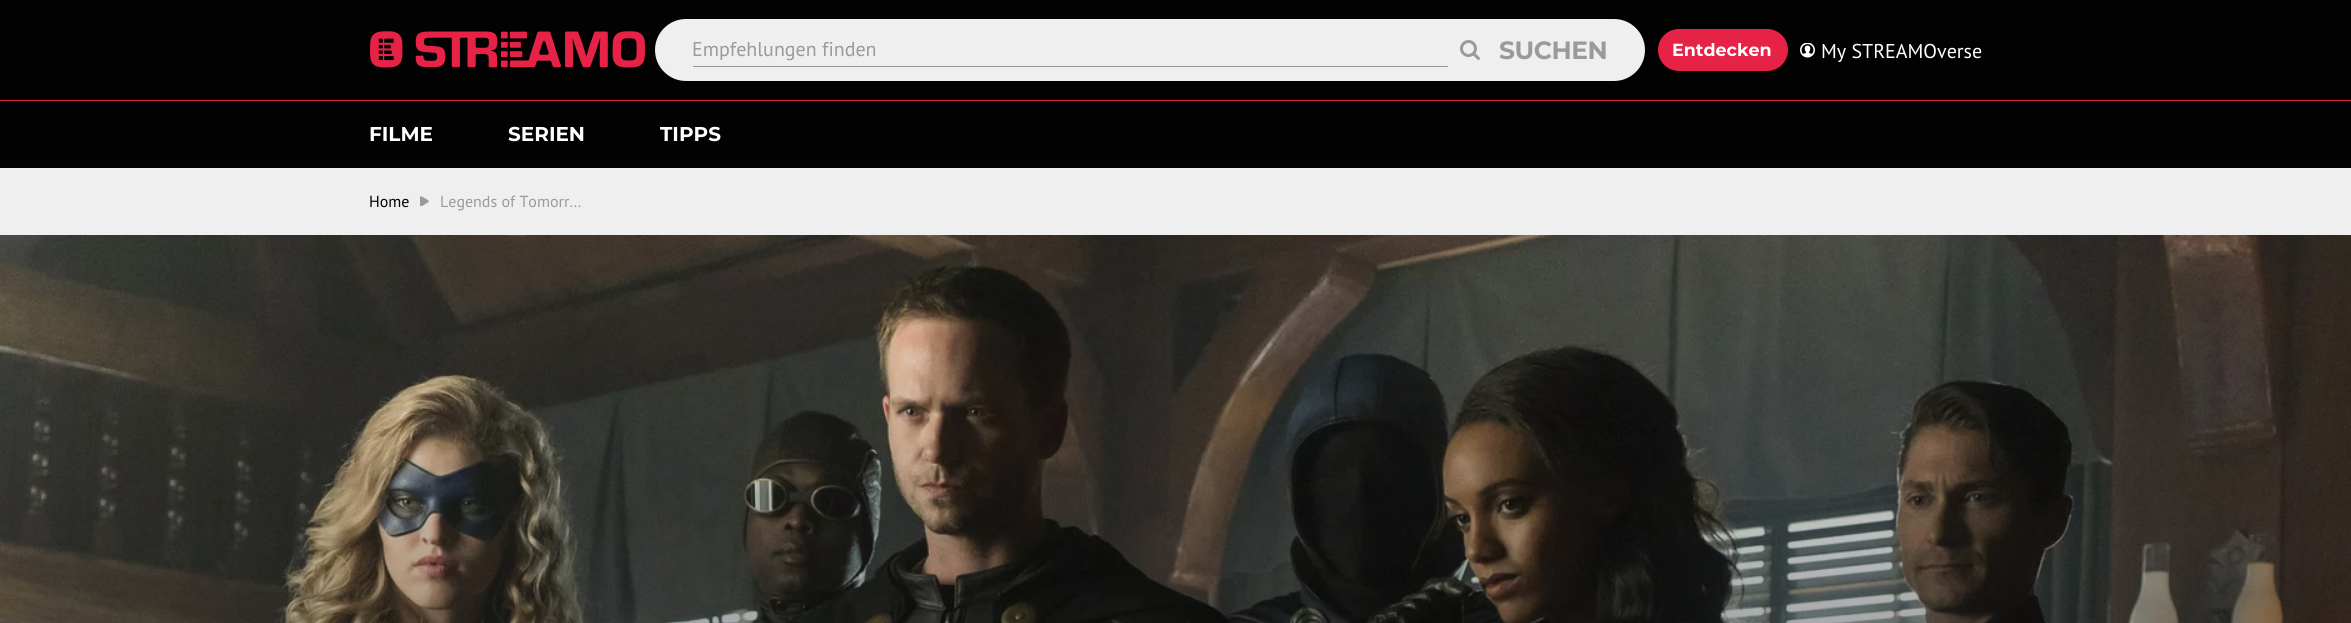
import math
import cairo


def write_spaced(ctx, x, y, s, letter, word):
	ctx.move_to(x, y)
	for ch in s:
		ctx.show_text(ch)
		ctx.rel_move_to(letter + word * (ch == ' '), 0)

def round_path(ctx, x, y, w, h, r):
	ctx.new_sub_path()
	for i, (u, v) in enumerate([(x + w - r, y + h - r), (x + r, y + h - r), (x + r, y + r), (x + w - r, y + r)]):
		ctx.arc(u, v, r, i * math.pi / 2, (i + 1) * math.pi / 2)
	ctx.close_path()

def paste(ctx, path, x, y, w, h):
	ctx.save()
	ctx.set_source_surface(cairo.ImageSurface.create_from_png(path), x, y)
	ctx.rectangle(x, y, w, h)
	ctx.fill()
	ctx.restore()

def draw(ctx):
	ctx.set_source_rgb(0.937, 0.937, 0.937)
	ctx.paint()
	ctx.set_source_rgb(0.008, 0.008, 0.008)
	ctx.rectangle(0, 0, 2351, 168)
	ctx.fill()
	paste(ctx, 'media/1.png', 370, 31, 275, 37)
	ctx.set_source_rgb(0.937, 0.937, 0.937)
	round_path(ctx, 655, 19, 990, 62, 31)
	ctx.fill()
	ctx.set_source_rgb(0.604, 0.604, 0.608)
	ctx.rectangle(693, 66, 755, 1)
	ctx.fill()
	ctx.select_font_face('PT Sans')
	ctx.set_font_size(20)
	ctx.move_to(692, 56)
	ctx.show_text('Empfehlungen finden')
	paste(ctx, 'media/2.png', 1460, 40, 20, 20)
	ctx.select_font_face('Montserrat', cairo.FONT_SLANT_NORMAL, cairo.FONT_WEIGHT_BOLD)
	ctx.set_font_size(25)
	write_spaced(ctx, 1499, 59, 'SUCHEN', -0.5, 0)
	ctx.set_source_rgb(0.902, 0.133, 0.278)
	round_path(ctx, 1658, 29, 130, 42, 21)
	ctx.fill()
	ctx.set_font_size(17.5)
	ctx.set_source_rgb(1, 1, 1)
	ctx.move_to(1672, 56)
	ctx.show_text('Entdecken')
	paste(ctx, 'media/3.png', 1800, 43, 15, 15)
	ctx.select_font_face('PT Sans')
	ctx.set_font_size(20)
	ctx.move_to(1821, 58)
	ctx.show_text('My STREAMOverse')
	ctx.select_font_face('Montserrat', cairo.FONT_SLANT_NORMAL, cairo.FONT_WEIGHT_BOLD)
	for x, y, s in [
		(369, 141, 'FILME'),
		(508, 141, 'SERIEN'),
		(660, 141, 'TIPPS'),
	]:
		ctx.move_to(x, y)
		ctx.show_text(s)
	ctx.set_source_rgb(0.902, 0.133, 0.278)
	ctx.rectangle(0, 100, 2351, 1)
	ctx.fill()
	ctx.select_font_face('PT Sans')
	ctx.set_font_size(16)
	ctx.set_source_rgb(0.008, 0.008, 0.008)
	ctx.move_to(369, 207)
	ctx.show_text('Home')
	paste(ctx, 'media/4.png', 420, 196, 9, 11)
	ctx.set_source_rgb(0.604, 0.604, 0.608)
	ctx.move_to(440, 207)
	ctx.show_text('Legends of Tomorr…')
	paste(ctx, 'media/5.png', 0, 235, 2351, 388)


surface = cairo.ImageSurface(cairo.FORMAT_RGB24, 2351, 623)
ctx = cairo.Context(surface)
options = cairo.FontOptions()
options.set_hint_metrics(cairo.HINT_METRICS_OFF)
options.set_hint_style(cairo.HINT_STYLE_NONE)
ctx.set_font_options(options)
ctx.set_miter_limit(4)
draw(ctx)
surface.write_to_png('image.png')
